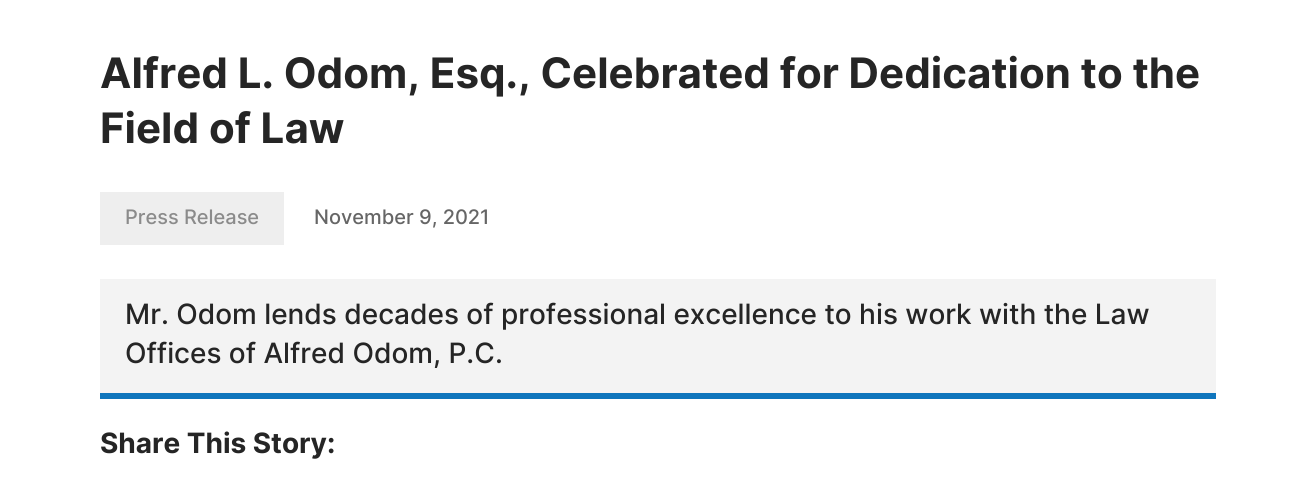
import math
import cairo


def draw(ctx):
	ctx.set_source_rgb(1, 1, 1)
	ctx.paint()
	ctx.select_font_face('Inter', cairo.FONT_SLANT_NORMAL, cairo.FONT_WEIGHT_BOLD)
	ctx.set_font_size(42)
	ctx.set_source_rgb(0.145, 0.145, 0.145)
	ctx.move_to(100, 88)
	ctx.show_text('Alfred L. Odom, Esq., Celebrated for Dedication to the')
	ctx.move_to(100, 143)
	ctx.show_text('Field of Law')
	ctx.set_source_rgb(0.933, 0.933, 0.933)
	ctx.rectangle(100, 192, 184, 53)
	ctx.fill()
	ctx.select_font_face('Inter Medium')
	ctx.set_font_size(20)
	ctx.set_source_rgb(0.545, 0.545, 0.545)
	ctx.move_to(125, 224)
	ctx.show_text('Press Release')
	ctx.set_source_rgb(0.4, 0.4, 0.4)
	ctx.move_to(314, 224)
	ctx.show_text('November 9, 2021')
	ctx.set_source_rgb(0.953, 0.953, 0.953)
	ctx.rectangle(100, 279, 1116, 114)
	ctx.fill()
	ctx.set_source_rgb(0.059, 0.459, 0.737)
	ctx.rectangle(100, 393, 1116, 6)
	ctx.fill()
	ctx.set_font_size(28)
	ctx.set_source_rgb(0.145, 0.145, 0.145)
	ctx.move_to(125, 324)
	ctx.show_text('Mr. Odom lends decades of professional excellence to his work with the Law')
	ctx.move_to(125, 363)
	ctx.show_text('Offices of Alfred Odom, P.C.')
	ctx.select_font_face('Inter', cairo.FONT_SLANT_NORMAL, cairo.FONT_WEIGHT_BOLD)
	ctx.move_to(100, 453)
	ctx.show_text('Share This Story:')


surface = cairo.ImageSurface(cairo.FORMAT_RGB24, 1316, 482)
ctx = cairo.Context(surface)
options = cairo.FontOptions()
options.set_hint_metrics(cairo.HINT_METRICS_OFF)
options.set_hint_style(cairo.HINT_STYLE_NONE)
ctx.set_font_options(options)
ctx.set_miter_limit(4)
draw(ctx)
surface.write_to_png('image.png')
